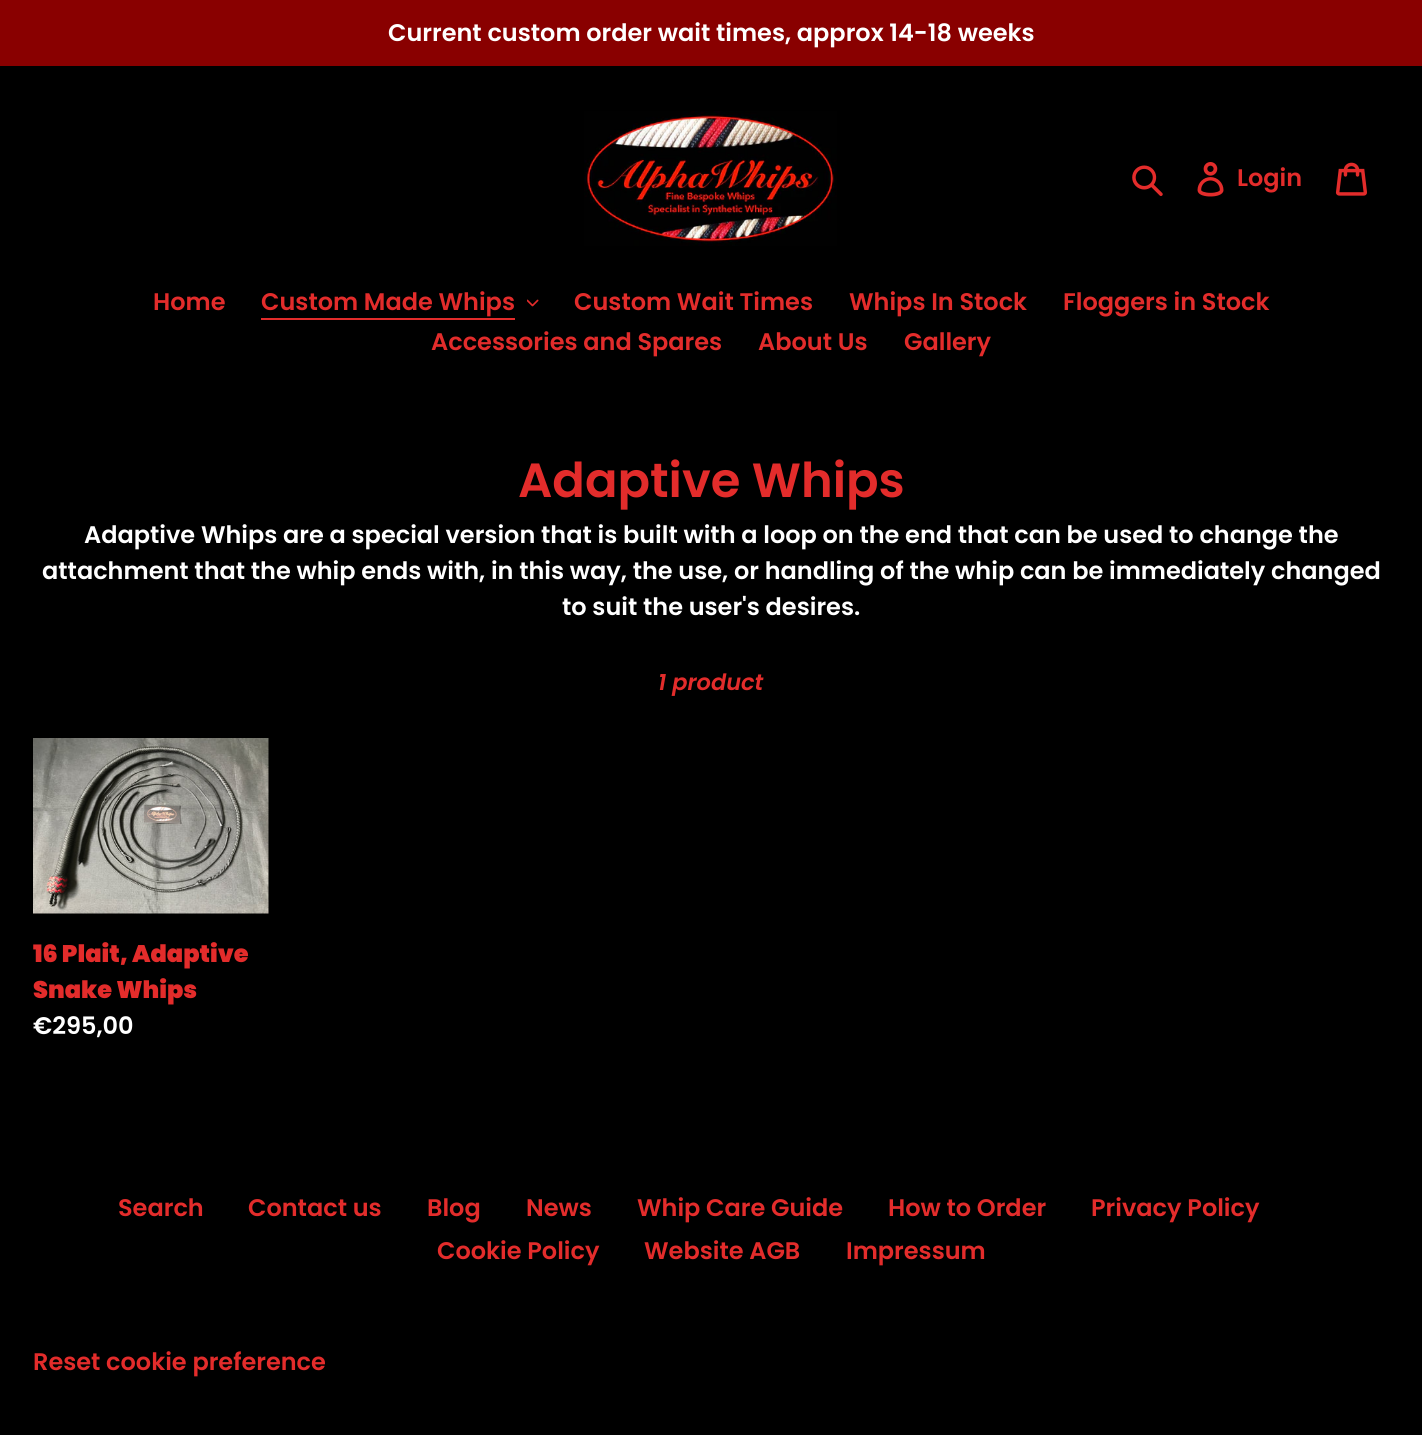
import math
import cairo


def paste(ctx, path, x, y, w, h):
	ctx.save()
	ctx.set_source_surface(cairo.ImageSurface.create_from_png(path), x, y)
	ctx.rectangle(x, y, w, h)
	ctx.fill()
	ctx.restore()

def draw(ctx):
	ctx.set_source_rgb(0, 0, 0)
	ctx.paint()
	ctx.set_source_rgb(0.537, 0, 0)
	ctx.rectangle(0, 0, 1422, 66)
	ctx.fill()
	ctx.select_font_face('Poppins SemiBold')
	ctx.set_font_size(24)
	ctx.set_source_rgb(1, 1, 1)
	ctx.move_to(388, 41)
	ctx.show_text('Current custom order wait times, approx 14-18 weeks')
	paste(ctx, 'media/1.png', 584, 111, 253, 135)
	paste(ctx, 'media/2.png', 1132, 165, 31, 31)
	paste(ctx, 'media/3.png', 1197, 162, 27, 35)
	ctx.set_source_rgb(0.89, 0.173, 0.169)
	ctx.move_to(1237, 186)
	ctx.show_text('Login')
	paste(ctx, 'media/4.png', 1335, 162, 32, 34)
	ctx.move_to(153, 310)
	ctx.show_text('Home')
	ctx.move_to(261, 310)
	ctx.show_text('Custom Made Whips')
	ctx.rectangle(261, 318, 254, 2)
	ctx.fill()
	paste(ctx, 'media/5.png', 527, 299, 12, 8)
	for x, y, s in [
		(574, 310, 'Custom Wait Times'),
		(849, 310, 'Whips In Stock'),
		(1063, 310, 'Floggers in Stock'),
		(431, 350, 'Accessories and Spares'),
		(758, 350, 'About Us'),
		(904, 350, 'Gallery'),
	]:
		ctx.move_to(x, y)
		ctx.show_text(s)
	ctx.set_font_size(48)
	ctx.move_to(518, 497)
	ctx.show_text('Adaptive Whips')
	ctx.set_font_size(24)
	ctx.set_source_rgb(1, 1, 1)
	for x, y, s in [
		(84, 543, 'Adaptive Whips are a special version that is built with a loop on the end that can be used to change the'),
		(42, 579, 'attachment that the whip ends with, in this way, the use, or handling of the whip can be immediately changed'),
		(562, 615, 'to suit the user\'s desires.'),
	]:
		ctx.move_to(x, y)
		ctx.show_text(s)
	ctx.select_font_face('Poppins SemiBold', cairo.FONT_SLANT_ITALIC)
	ctx.set_font_size(22.5)
	ctx.set_source_rgb(0.89, 0.173, 0.169)
	ctx.move_to(658, 690)
	ctx.show_text('1 product')
	paste(ctx, 'media/6.png', 33, 738, 236, 176)
	ctx.select_font_face('Poppins Black')
	ctx.set_font_size(24)
	ctx.move_to(33, 962)
	ctx.show_text('16 Plait, Adaptive')
	ctx.move_to(33, 998)
	ctx.show_text('Snake Whips')
	ctx.select_font_face('Poppins SemiBold')
	ctx.set_source_rgb(1, 1, 1)
	ctx.move_to(33, 1034)
	ctx.show_text('€295,00')
	ctx.set_source_rgb(0.89, 0.173, 0.169)
	for x, y, s in [
		(118, 1216, 'Search'),
		(248, 1216, 'Contact us'),
		(427, 1216, 'Blog'),
		(526, 1216, 'News'),
		(637, 1216, 'Whip Care Guide'),
		(888, 1216, 'How to Order'),
		(1091, 1216, 'Privacy Policy'),
		(437, 1259, 'Cookie Policy'),
		(644, 1259, 'Website AGB'),
		(846, 1259, 'Impressum'),
		(33, 1370, 'Reset cookie preference'),
	]:
		ctx.move_to(x, y)
		ctx.show_text(s)


surface = cairo.ImageSurface(cairo.FORMAT_RGB24, 1422, 1435)
ctx = cairo.Context(surface)
options = cairo.FontOptions()
options.set_hint_metrics(cairo.HINT_METRICS_OFF)
options.set_hint_style(cairo.HINT_STYLE_NONE)
ctx.set_font_options(options)
ctx.set_miter_limit(4)
draw(ctx)
surface.write_to_png('image.png')
